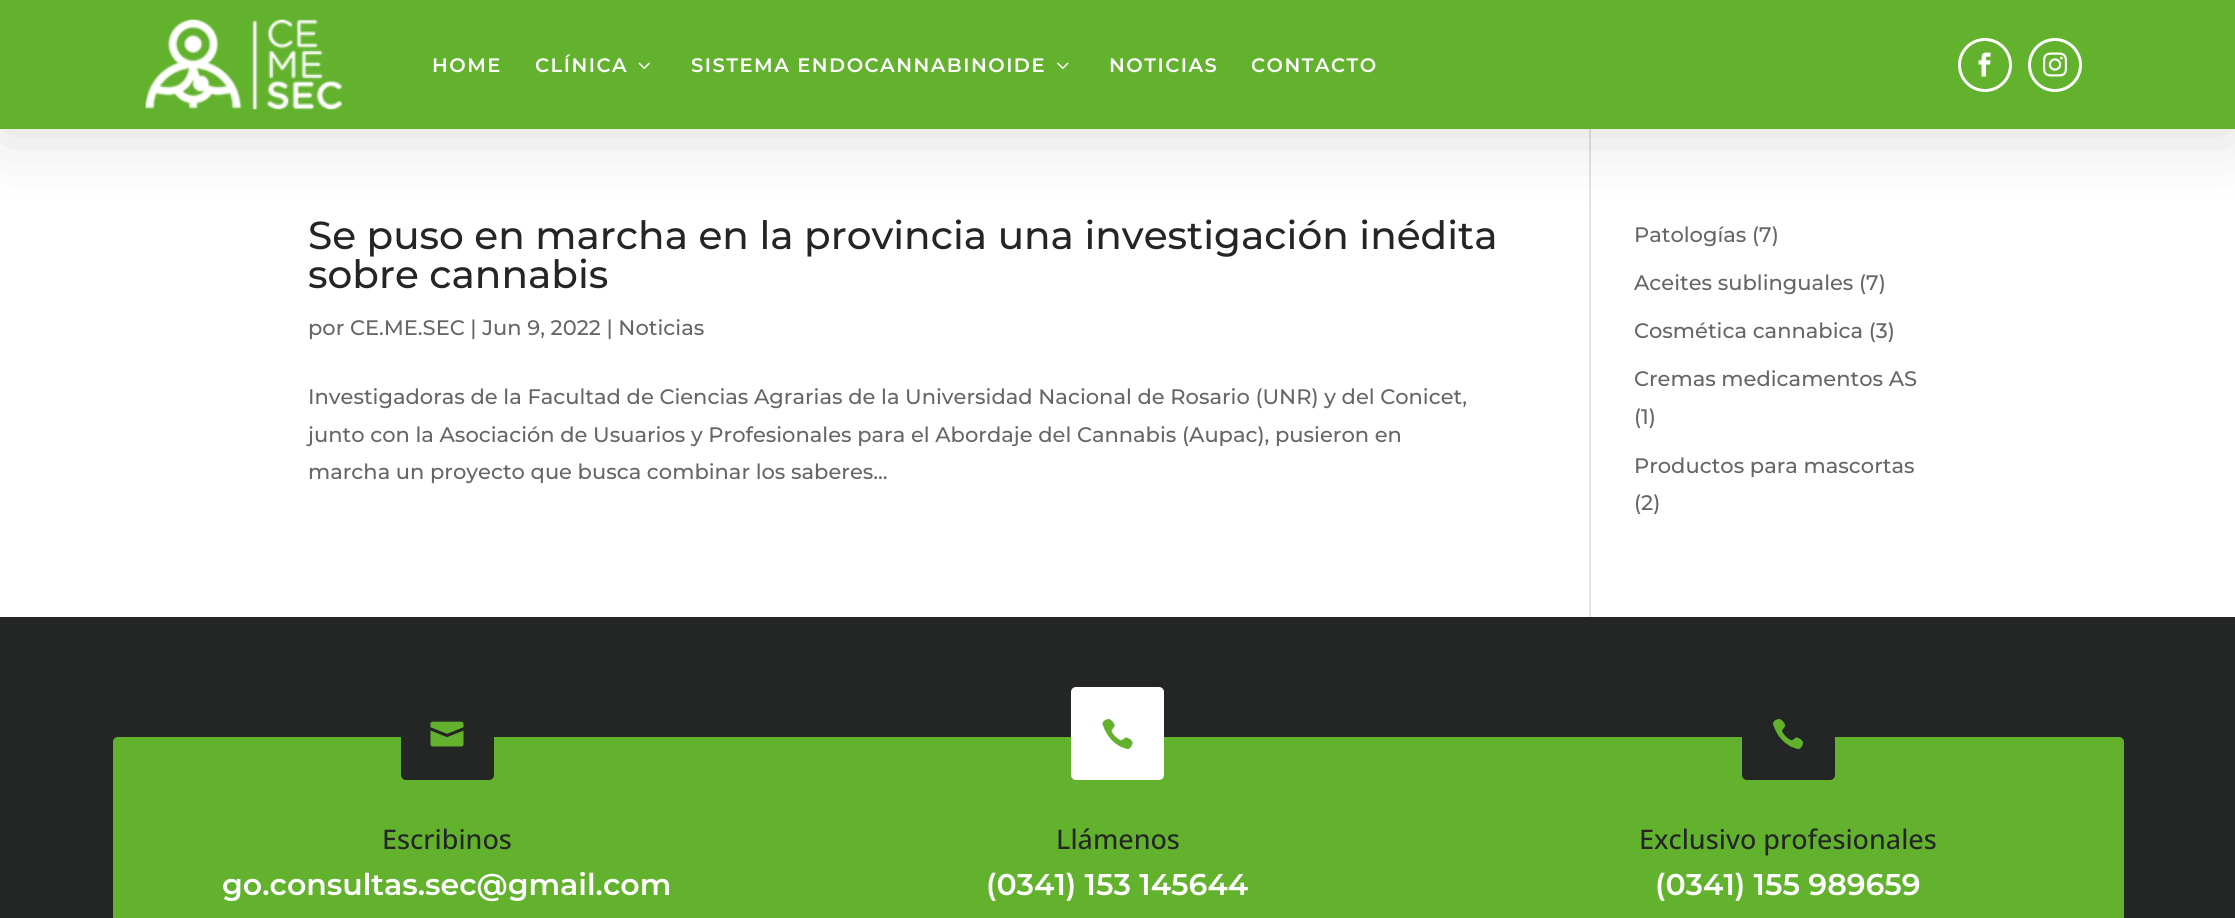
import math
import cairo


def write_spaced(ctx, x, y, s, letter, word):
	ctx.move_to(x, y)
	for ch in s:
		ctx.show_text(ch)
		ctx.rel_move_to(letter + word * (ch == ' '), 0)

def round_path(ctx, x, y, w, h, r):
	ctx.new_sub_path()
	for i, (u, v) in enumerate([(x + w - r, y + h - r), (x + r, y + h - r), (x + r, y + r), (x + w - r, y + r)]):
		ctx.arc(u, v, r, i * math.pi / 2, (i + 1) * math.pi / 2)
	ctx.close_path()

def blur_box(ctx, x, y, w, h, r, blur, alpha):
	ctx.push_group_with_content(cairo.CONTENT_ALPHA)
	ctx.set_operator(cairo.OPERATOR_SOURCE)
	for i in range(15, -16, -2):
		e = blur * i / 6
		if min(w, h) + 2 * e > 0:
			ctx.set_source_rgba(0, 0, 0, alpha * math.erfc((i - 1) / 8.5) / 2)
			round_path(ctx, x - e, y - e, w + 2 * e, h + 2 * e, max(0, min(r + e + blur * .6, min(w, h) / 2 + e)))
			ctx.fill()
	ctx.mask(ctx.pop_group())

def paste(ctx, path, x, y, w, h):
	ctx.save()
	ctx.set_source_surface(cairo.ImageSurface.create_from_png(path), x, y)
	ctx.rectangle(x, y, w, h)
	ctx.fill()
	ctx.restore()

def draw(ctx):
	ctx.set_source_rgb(1, 1, 1)
	ctx.paint()
	ctx.set_source_rgb(0.886, 0.886, 0.886)
	ctx.rectangle(1589, 129, 2, 488)
	ctx.fill()
	ctx.set_source_rgb(0, 0, 0)
	blur_box(ctx, 0, 3, 2235, 129, 0, 37.5, 0.15)
	ctx.set_source_rgb(0.384, 0.698, 0.18)
	ctx.rectangle(0, 0, 2235, 129)
	ctx.fill()
	paste(ctx, 'media/1.png', 145, 19, 197, 91)
	ctx.select_font_face('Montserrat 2 Thin')
	ctx.set_font_size(19.5)
	ctx.set_source_rgb(1, 1, 1)
	write_spaced(ctx, 432, 72, 'HOME', 1.5, 0)
	write_spaced(ctx, 535, 72, 'CLÍNICA', 1.5, 0)
	paste(ctx, 'media/2.png', 638, 62, 12, 7)
	write_spaced(ctx, 691, 72, 'SISTEMA ENDOCANNABINOIDE', 1.5, 0)
	paste(ctx, 'media/3.png', 1057, 62, 12, 7)
	write_spaced(ctx, 1109, 72, 'NOTICIAS', 1.5, 0)
	write_spaced(ctx, 1251, 72, 'CONTACTO', 1.5, 0)
	ctx.new_path()
	ctx.arc(1985, 65, 25.5, 0, 2 * math.pi)
	ctx.set_line_width(3)
	ctx.stroke()
	paste(ctx, 'media/4.png', 1978, 52, 13, 25)
	ctx.arc(2055, 65, 25.5, 0, 2 * math.pi)
	ctx.stroke()
	paste(ctx, 'media/5.png', 2043, 52, 24, 25)
	ctx.select_font_face('Montserrat Thin')
	ctx.set_font_size(39)
	ctx.set_source_rgb(0.141, 0.149, 0.149)
	ctx.move_to(308, 249)
	ctx.show_text('Se puso en marcha en la provincia una investigación inédita')
	ctx.move_to(308, 288)
	ctx.show_text('sobre cannabis')
	ctx.set_font_size(21)
	ctx.set_source_rgb(0.4, 0.4, 0.4)
	for x, y, s in [
		(308, 335, 'por CE.ME.SEC | Jun 9, 2022 | Noticias'),
		(308, 404, 'Investigadoras de la Facultad de Ciencias Agrarias de la Universidad Nacional de Rosario (UNR) y del Conicet,'),
		(308, 442, 'junto con la Asociación de Usuarios y Profesionales para el Abordaje del Cannabis (Aupac), pusieron en'),
		(308, 479, 'marcha un proyecto que busca combinar los saberes...'),
		(1634, 242, 'Patologías (7)'),
		(1634, 290, 'Aceites sublinguales (7)'),
		(1634, 338, 'Cosmética cannabica (3)'),
		(1634, 386, 'Cremas medicamentos AS'),
		(1634, 424, '(1)'),
		(1634, 473, 'Productos para mascortas'),
		(1634, 510, '(2)'),
	]:
		ctx.move_to(x, y)
		ctx.show_text(s)
	ctx.set_source_rgb(0.141, 0.149, 0.149)
	ctx.rectangle(0, 617, 2235, 301)
	ctx.fill()
	ctx.set_source_rgb(0.384, 0.698, 0.18)
	round_path(ctx, 113, 737, 2011, 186, 5)
	ctx.fill()
	ctx.set_source_rgb(0.141, 0.149, 0.149)
	round_path(ctx, 401, 687, 93, 93, 5)
	ctx.fill()
	paste(ctx, 'media/6.png', 430, 721, 34, 26)
	ctx.select_font_face('Open Sans Medium')
	ctx.set_font_size(27)
	ctx.move_to(382, 849)
	ctx.show_text('Escribinos')
	ctx.select_font_face('Montserrat 2 Thin')
	ctx.set_font_size(30)
	ctx.set_source_rgb(1, 1, 1)
	ctx.move_to(222, 895)
	ctx.show_text('go.consultas.sec@gmail.com')
	round_path(ctx, 1071, 687, 93, 93, 5)
	ctx.fill()
	paste(ctx, 'media/7.png', 1102, 718, 31, 32)
	ctx.select_font_face('Open Sans Medium')
	ctx.set_font_size(27)
	ctx.set_source_rgb(0.141, 0.149, 0.149)
	ctx.move_to(1056, 849)
	ctx.show_text('Llámenos')
	ctx.select_font_face('Montserrat 2 Thin')
	ctx.set_font_size(30)
	ctx.set_source_rgb(1, 1, 1)
	ctx.move_to(986, 895)
	ctx.show_text('(0341) 153 145644')
	ctx.set_source_rgb(0.141, 0.149, 0.149)
	round_path(ctx, 1742, 687, 93, 93, 5)
	ctx.fill()
	paste(ctx, 'media/8.png', 1772, 718, 32, 32)
	ctx.select_font_face('Open Sans Medium')
	ctx.set_font_size(27)
	ctx.move_to(1639, 849)
	ctx.show_text('Exclusivo profesionales')
	ctx.select_font_face('Montserrat 2 Thin')
	ctx.set_font_size(30)
	ctx.set_source_rgb(1, 1, 1)
	ctx.move_to(1655, 895)
	ctx.show_text('(0341) 155 989659')


surface = cairo.ImageSurface(cairo.FORMAT_RGB24, 2235, 918)
ctx = cairo.Context(surface)
options = cairo.FontOptions()
options.set_hint_metrics(cairo.HINT_METRICS_OFF)
options.set_hint_style(cairo.HINT_STYLE_NONE)
ctx.set_font_options(options)
ctx.set_miter_limit(4)
draw(ctx)
surface.write_to_png('image.png')
